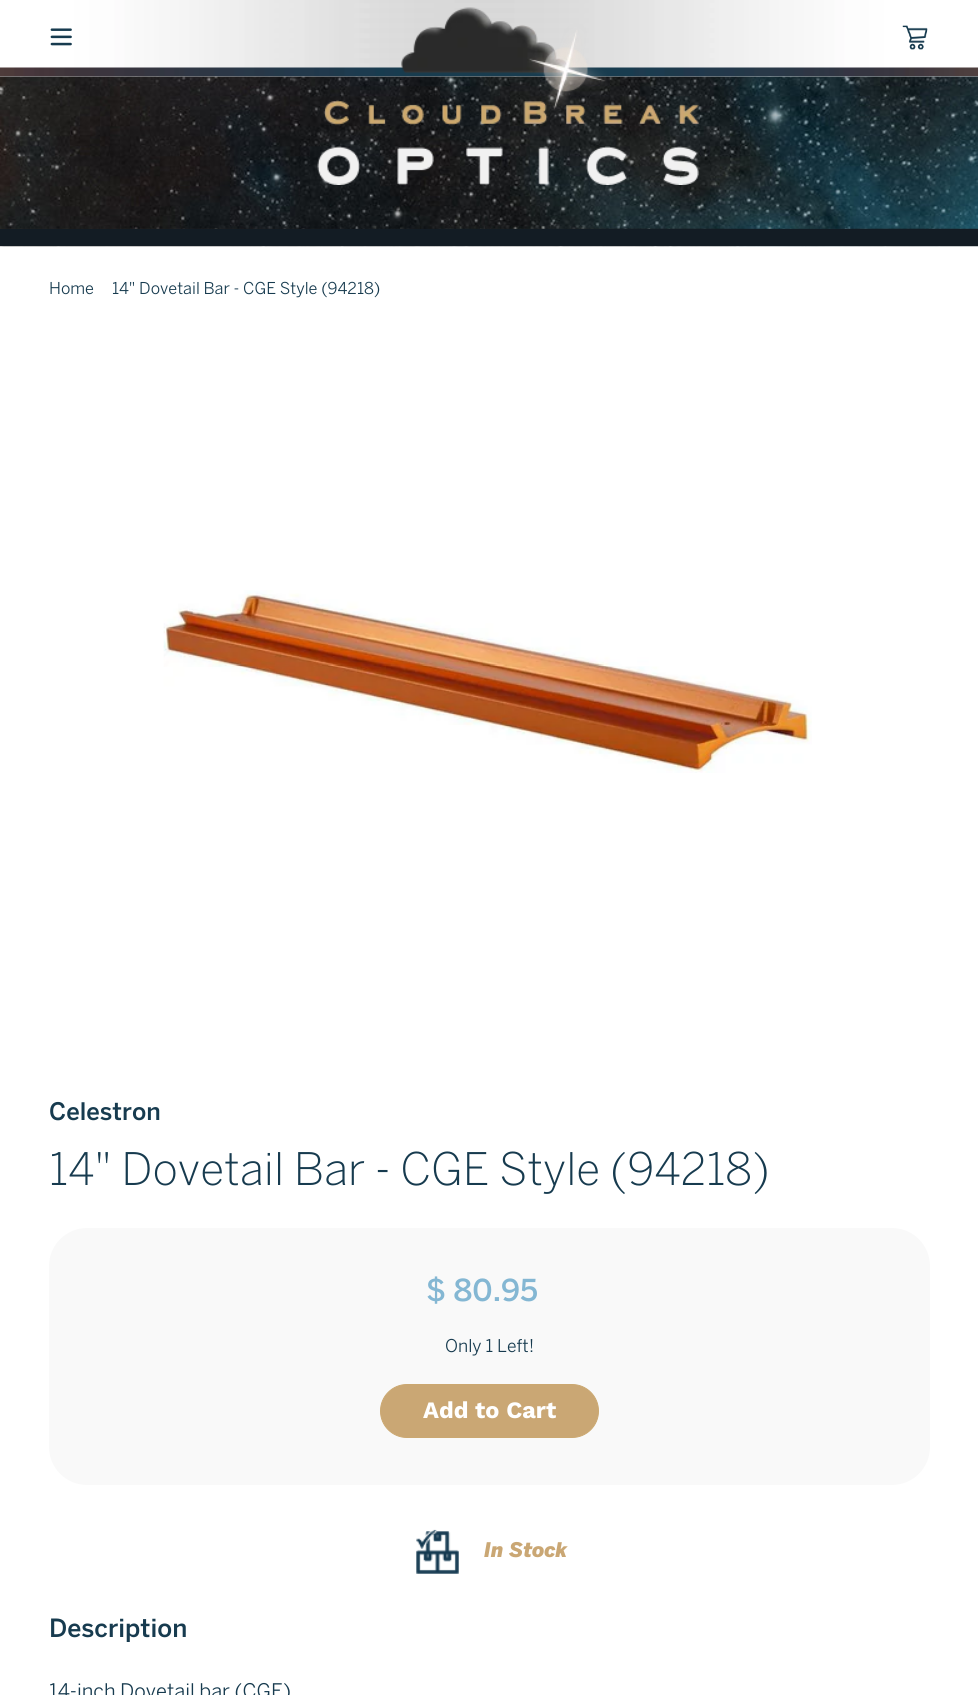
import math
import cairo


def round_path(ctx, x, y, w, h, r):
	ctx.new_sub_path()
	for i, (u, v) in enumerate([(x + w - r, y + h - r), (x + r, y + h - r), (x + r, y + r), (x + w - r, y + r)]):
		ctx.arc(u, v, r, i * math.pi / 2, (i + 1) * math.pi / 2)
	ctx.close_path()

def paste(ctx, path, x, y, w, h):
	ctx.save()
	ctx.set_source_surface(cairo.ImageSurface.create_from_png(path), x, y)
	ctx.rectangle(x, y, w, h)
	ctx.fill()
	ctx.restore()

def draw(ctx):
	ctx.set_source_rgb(1, 1, 1)
	ctx.paint()
	paste(ctx, 'media/6.png', 0, 76, 978, 171)
	paste(ctx, 'media/1.png', 0, 0, 978, 77)
	paste(ctx, 'media/2.png', 50, 28, 22, 18)
	paste(ctx, 'media/5.png', 0, 67, 978, 10)
	paste(ctx, 'media/3.png', 317, 7, 382, 178)
	paste(ctx, 'media/4.png', 902, 25, 26, 25)
	ctx.set_source_rgb(0.075, 0.11, 0.141)
	ctx.rectangle(0, 229, 978, 17)
	ctx.fill()
	ctx.select_font_face('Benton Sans')
	ctx.set_font_size(16.25)
	ctx.set_source_rgb(0.09, 0.231, 0.31)
	ctx.move_to(49, 294)
	ctx.show_text('Home')
	ctx.move_to(112, 294)
	ctx.show_text('14" Dovetail Bar - CGE Style (94218)')
	paste(ctx, 'media/7.png', 163, 590, 649, 183)
	ctx.select_font_face('Benton Sans Medium')
	ctx.set_font_size(24)
	ctx.move_to(49, 1120)
	ctx.show_text('Celestron')
	ctx.select_font_face('Benton Sans Light')
	ctx.set_font_size(44.5)
	ctx.move_to(49, 1185)
	ctx.show_text('14" Dovetail Bar - CGE Style (94218)')
	ctx.set_source_rgb(0.973, 0.973, 0.973)
	round_path(ctx, 49, 1228, 881, 257, 38)
	ctx.fill()
	ctx.select_font_face('Benton Sans Medium')
	ctx.set_font_size(30)
	ctx.set_source_rgb(0.518, 0.718, 0.827)
	ctx.move_to(426, 1301)
	ctx.show_text('$ 80.95')
	ctx.select_font_face('Benton Sans')
	ctx.set_font_size(17.5)
	ctx.set_source_rgb(0.09, 0.231, 0.31)
	ctx.move_to(445, 1352)
	ctx.show_text('Only 1 Left!')
	ctx.set_source_rgb(0.792, 0.655, 0.455)
	round_path(ctx, 380.5, 1384.5, 218, 53, 26.5)
	ctx.fill_preserve()
	ctx.set_source_rgb(0.796, 0.659, 0.443)
	ctx.set_line_width(1)
	ctx.stroke()
	ctx.select_font_face('Work Sans', cairo.FONT_SLANT_NORMAL, cairo.FONT_WEIGHT_BOLD)
	ctx.set_font_size(23.5)
	ctx.set_source_rgb(1, 1, 1)
	ctx.move_to(423, 1418)
	ctx.show_text('Add to Cart')
	paste(ctx, 'media/8.png', 416, 1529, 43, 45)
	ctx.select_font_face('Benton Sans Black', cairo.FONT_SLANT_ITALIC)
	ctx.set_font_size(20)
	ctx.set_source_rgb(0.792, 0.655, 0.455)
	ctx.move_to(484, 1557)
	ctx.show_text('In Stock')
	ctx.select_font_face('Benton Sans Medium')
	ctx.set_font_size(25)
	ctx.set_source_rgb(0.09, 0.231, 0.31)
	ctx.move_to(49, 1637)
	ctx.show_text('Description')
	ctx.select_font_face('Benton Sans')
	ctx.set_font_size(20)
	ctx.move_to(49, 1698)
	ctx.show_text('14-inch Dovetail bar (CGE)')


surface = cairo.ImageSurface(cairo.FORMAT_RGB24, 978, 1695)
ctx = cairo.Context(surface)
options = cairo.FontOptions()
options.set_hint_metrics(cairo.HINT_METRICS_OFF)
options.set_hint_style(cairo.HINT_STYLE_NONE)
ctx.set_font_options(options)
ctx.set_miter_limit(4)
draw(ctx)
surface.write_to_png('image.png')
